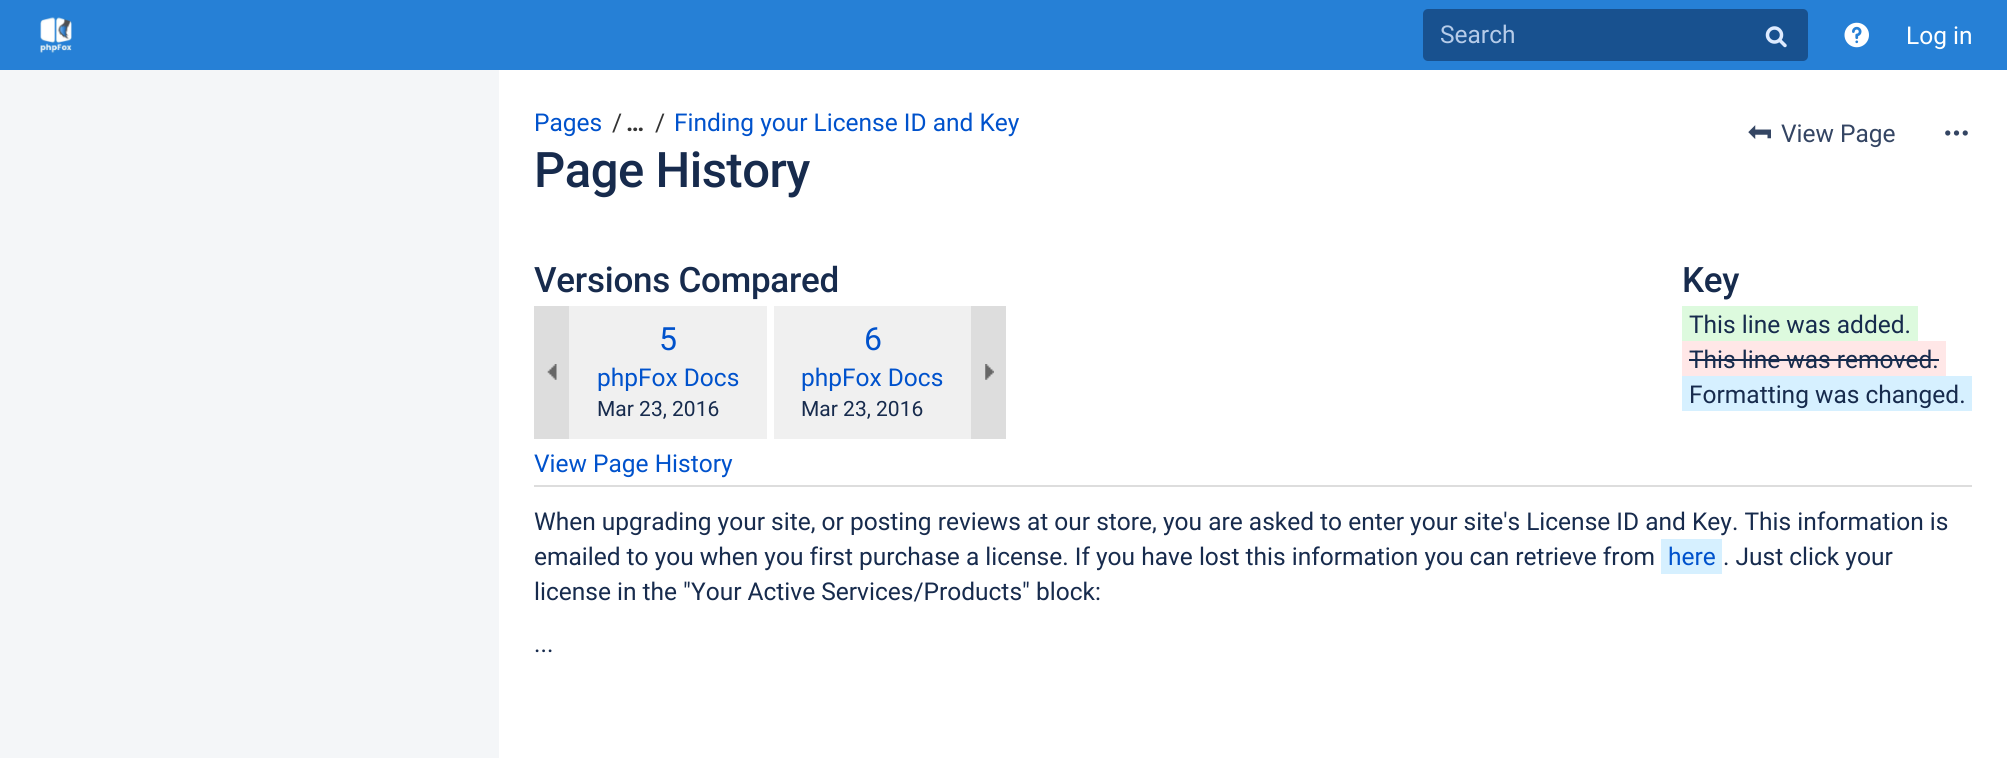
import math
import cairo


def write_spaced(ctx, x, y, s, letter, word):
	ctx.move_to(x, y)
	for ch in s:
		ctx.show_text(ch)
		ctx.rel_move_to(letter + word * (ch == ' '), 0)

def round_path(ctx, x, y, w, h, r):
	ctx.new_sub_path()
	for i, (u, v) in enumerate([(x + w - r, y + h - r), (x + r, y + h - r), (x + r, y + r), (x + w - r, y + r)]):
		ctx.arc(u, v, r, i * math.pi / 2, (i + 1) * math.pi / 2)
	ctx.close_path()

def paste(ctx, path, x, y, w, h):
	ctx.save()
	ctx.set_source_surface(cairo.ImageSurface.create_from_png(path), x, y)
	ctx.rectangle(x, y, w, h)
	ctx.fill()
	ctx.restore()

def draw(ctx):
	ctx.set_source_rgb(0.957, 0.961, 0.969)
	ctx.paint()
	ctx.set_source_rgb(0.149, 0.502, 0.839)
	ctx.rectangle(0, 0, 2007, 70)
	ctx.fill()
	paste(ctx, 'media/1.png', 40, 17, 32, 36)
	ctx.set_source_rgb(0.094, 0.318, 0.561)
	round_path(ctx, 1423, 9, 385, 52, 5)
	ctx.fill()
	ctx.select_font_face('Roboto')
	ctx.set_font_size(24.5)
	ctx.set_source_rgb(0.714, 0.8, 0.914)
	ctx.move_to(1440, 43)
	ctx.show_text('Search')
	paste(ctx, 'media/2.png', 1765, 26, 22, 22)
	paste(ctx, 'media/3.png', 1844, 22, 25, 26)
	ctx.set_source_rgb(1, 1, 1)
	ctx.move_to(1906, 44)
	ctx.show_text('Log in')
	ctx.rectangle(499, 70, 1508, 688)
	ctx.fill()
	ctx.set_source_rgb(0, 0.322, 0.8)
	ctx.move_to(534, 131)
	ctx.show_text('Pages')
	ctx.set_source_rgb(0.2, 0.2, 0.2)
	ctx.move_to(612, 131)
	ctx.show_text('/')
	ctx.select_font_face('Roboto', cairo.FONT_SLANT_NORMAL, cairo.FONT_WEIGHT_BOLD)
	ctx.move_to(626, 131)
	ctx.show_text('…')
	ctx.select_font_face('Roboto')
	ctx.move_to(655, 131)
	ctx.show_text('/')
	ctx.set_source_rgb(0, 0.322, 0.8)
	ctx.move_to(674, 131)
	ctx.show_text('Finding your License ID and Key')
	ctx.select_font_face('Roboto Medium')
	ctx.set_font_size(49)
	ctx.set_source_rgb(0.09, 0.169, 0.302)
	write_spaced(ctx, 534, 187, 'Page History', -0.5, 0)
	paste(ctx, 'media/4.png', 1748, 125, 23, 14)
	ctx.select_font_face('Roboto')
	ctx.set_font_size(24.5)
	ctx.set_source_rgb(0.204, 0.271, 0.388)
	ctx.move_to(1781, 142)
	ctx.show_text('View Page')
	paste(ctx, 'media/5.png', 1945, 130, 23, 6)
	ctx.set_source_rgb(0.867, 0.867, 0.867)
	ctx.rectangle(534, 485, 1438, 2)
	ctx.fill()
	ctx.select_font_face('Roboto Medium')
	ctx.set_font_size(35)
	ctx.set_source_rgb(0.09, 0.169, 0.302)
	write_spaced(ctx, 534, 292, 'Versions Compared', -0.25, 0)
	write_spaced(ctx, 1682, 292, 'Key', -0.25, 0)
	ctx.set_source_rgb(0.867, 0.98, 0.871)
	ctx.rectangle(1682, 306, 236, 35)
	ctx.fill()
	ctx.select_font_face('Roboto')
	ctx.set_font_size(24.5)
	ctx.set_source_rgb(0.09, 0.169, 0.302)
	ctx.move_to(1689, 333)
	ctx.show_text('This line was added.')
	ctx.set_source_rgb(1, 0.906, 0.906)
	ctx.rectangle(1682, 341, 264, 35)
	ctx.fill()
	ctx.set_source_rgb(0.09, 0.169, 0.302)
	ctx.move_to(1689, 368)
	ctx.show_text('This line was removed.')
	ctx.rectangle(1689, 359, 250, 2)
	ctx.fill()
	ctx.set_source_rgb(0.839, 0.941, 1)
	ctx.rectangle(1682, 376, 290, 35)
	ctx.fill()
	ctx.set_source_rgb(0.09, 0.169, 0.302)
	ctx.move_to(1689, 403)
	ctx.show_text('Formatting was changed.')
	ctx.set_source_rgb(0.941, 0.941, 0.941)
	ctx.rectangle(569, 306, 198, 133)
	ctx.fill()
	ctx.set_font_size(32)
	ctx.set_source_rgb(0, 0.322, 0.8)
	ctx.move_to(659, 350)
	ctx.show_text('5')
	ctx.set_font_size(24.5)
	ctx.move_to(597, 386)
	ctx.show_text('phpFox Docs')
	ctx.set_font_size(21)
	ctx.set_source_rgb(0.09, 0.169, 0.302)
	ctx.move_to(597, 416)
	ctx.show_text('Mar 23, 2016')
	ctx.set_source_rgb(0.941, 0.941, 0.941)
	ctx.rectangle(774, 306, 197, 133)
	ctx.fill()
	ctx.set_font_size(32)
	ctx.set_source_rgb(0, 0.322, 0.8)
	ctx.move_to(864, 350)
	ctx.show_text('6')
	ctx.set_font_size(24.5)
	ctx.move_to(801, 386)
	ctx.show_text('phpFox Docs')
	ctx.set_font_size(21)
	ctx.set_source_rgb(0.09, 0.169, 0.302)
	ctx.move_to(801, 416)
	ctx.show_text('Mar 23, 2016')
	ctx.set_source_rgb(0.867, 0.867, 0.867)
	ctx.rectangle(534, 306, 35, 133)
	ctx.fill()
	paste(ctx, 'media/6.png', 547, 364, 10, 16)
	ctx.rectangle(971, 306, 35, 133)
	ctx.fill()
	paste(ctx, 'media/7.png', 985, 364, 9, 16)
	ctx.set_font_size(24.5)
	ctx.set_source_rgb(0, 0.322, 0.8)
	ctx.move_to(534, 472)
	ctx.show_text('View Page History')
	ctx.set_source_rgb(0.09, 0.169, 0.302)
	ctx.move_to(534, 530)
	ctx.show_text('When upgrading your site, or posting reviews at our store, you are asked to enter your site\'s License ID and Key. This information is')
	ctx.move_to(534, 565)
	ctx.show_text('emailed to you when you first purchase a license. If you have lost this information you can retrieve from')
	ctx.set_source_rgb(0.839, 0.941, 1)
	ctx.rectangle(1661, 539, 61, 35)
	ctx.fill()
	ctx.set_source_rgb(0, 0.322, 0.8)
	ctx.move_to(1668, 565)
	ctx.show_text('here')
	ctx.set_source_rgb(0.09, 0.169, 0.302)
	for x, y, s in [
		(1723, 565, '. Just click your'),
		(534, 600, 'license in the "Your Active Services/Products" block:'),
		(534, 652, '...'),
	]:
		ctx.move_to(x, y)
		ctx.show_text(s)


surface = cairo.ImageSurface(cairo.FORMAT_RGB24, 2007, 758)
ctx = cairo.Context(surface)
options = cairo.FontOptions()
options.set_hint_metrics(cairo.HINT_METRICS_OFF)
options.set_hint_style(cairo.HINT_STYLE_NONE)
ctx.set_font_options(options)
ctx.set_miter_limit(4)
draw(ctx)
surface.write_to_png('image.png')
